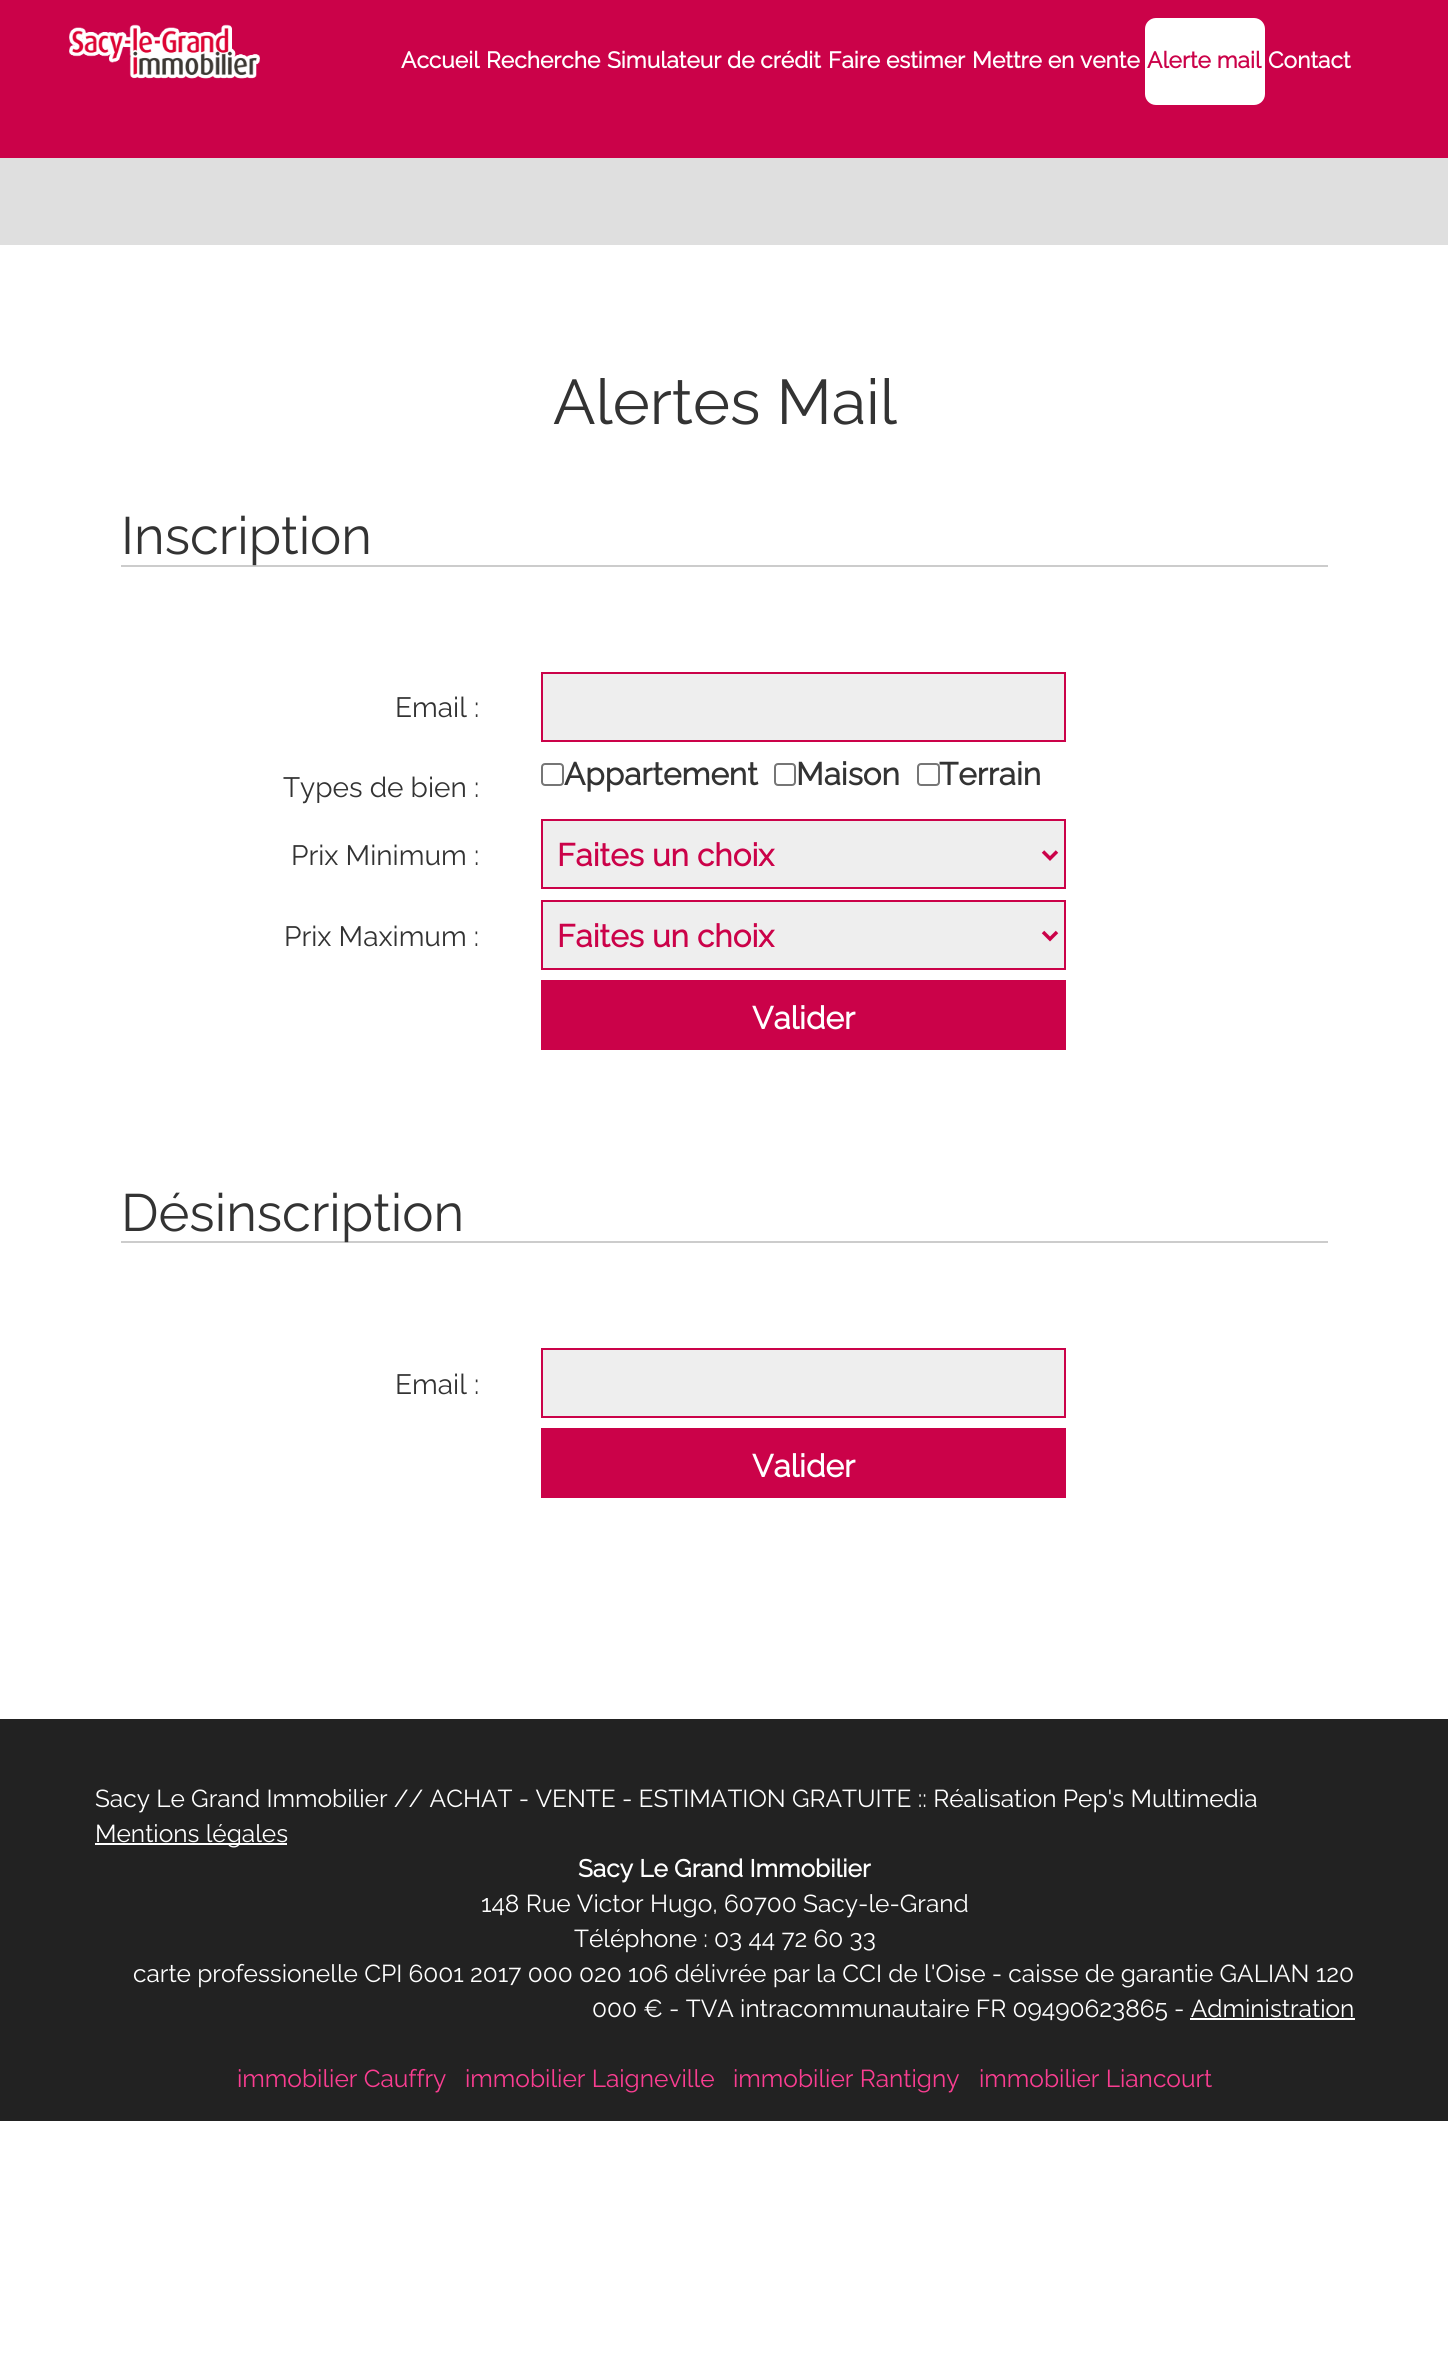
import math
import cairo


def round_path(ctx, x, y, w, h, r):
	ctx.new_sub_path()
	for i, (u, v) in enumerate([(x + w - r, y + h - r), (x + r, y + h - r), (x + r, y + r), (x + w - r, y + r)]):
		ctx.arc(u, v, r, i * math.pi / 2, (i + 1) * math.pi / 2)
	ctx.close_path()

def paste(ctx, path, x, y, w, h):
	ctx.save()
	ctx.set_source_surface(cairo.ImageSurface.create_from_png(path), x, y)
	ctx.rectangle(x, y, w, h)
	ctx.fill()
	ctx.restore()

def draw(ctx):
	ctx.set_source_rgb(1, 1, 1)
	ctx.paint()
	ctx.set_source_rgb(0.796, 0.008, 0.286)
	ctx.rectangle(0, 0, 1448, 158)
	ctx.fill()
	paste(ctx, 'media/1.png', 69, 24, 191, 55)
	ctx.select_font_face('Raleway', cairo.FONT_SLANT_NORMAL, cairo.FONT_WEIGHT_BOLD)
	ctx.set_font_size(22.75)
	ctx.set_source_rgb(1, 1, 1)
	for x, y, s in [
		(401, 68, 'Accueil'),
		(486, 68, 'Recherche'),
		(607, 68, 'Simulateur de crédit'),
		(828, 68, 'Faire estimer'),
		(972, 68, 'Mettre en vente'),
	]:
		ctx.move_to(x, y)
		ctx.show_text(s)
	round_path(ctx, 1145, 18, 120, 87, 11)
	ctx.fill()
	ctx.set_source_rgb(0.796, 0.008, 0.286)
	ctx.move_to(1147, 68)
	ctx.show_text('Alerte mail')
	ctx.set_source_rgb(1, 1, 1)
	ctx.move_to(1268, 68)
	ctx.show_text('Contact')
	ctx.set_source_rgb(0.875, 0.875, 0.875)
	ctx.rectangle(0, 158, 1448, 87)
	ctx.fill()
	ctx.select_font_face('Raleway Thin')
	ctx.set_font_size(63)
	ctx.set_source_rgb(0.2, 0.2, 0.2)
	ctx.move_to(553, 424)
	ctx.show_text('Alertes Mail')
	ctx.set_source_rgb(0.8, 0.8, 0.8)
	ctx.rectangle(121, 565, 1207, 2)
	ctx.fill()
	ctx.set_font_size(52.5)
	ctx.set_source_rgb(0.2, 0.2, 0.2)
	ctx.move_to(121, 554)
	ctx.show_text('Inscription')
	ctx.set_font_size(28)
	ctx.move_to(395, 717)
	ctx.show_text('Email :')
	ctx.set_source_rgb(0.933, 0.933, 0.933)
	ctx.rectangle(542, 673, 523, 68)
	ctx.fill_preserve()
	ctx.set_source_rgb(0.796, 0.008, 0.286)
	ctx.stroke()
	ctx.set_source_rgb(0.2, 0.2, 0.2)
	ctx.move_to(283, 797)
	ctx.show_text('Types de bien :')
	round_path(ctx, 542, 764, 21, 21, 3)
	ctx.set_source_rgb(0.463, 0.463, 0.463)
	ctx.stroke()
	ctx.select_font_face('Raleway', cairo.FONT_SLANT_NORMAL, cairo.FONT_WEIGHT_BOLD)
	ctx.set_font_size(31.5)
	ctx.set_source_rgb(0.2, 0.2, 0.2)
	ctx.move_to(564, 785)
	ctx.show_text('Appartement')
	round_path(ctx, 775, 764, 20, 21, 3)
	ctx.set_source_rgb(0.463, 0.463, 0.463)
	ctx.stroke()
	ctx.set_source_rgb(0.2, 0.2, 0.2)
	ctx.move_to(796, 785)
	ctx.show_text('Maison')
	round_path(ctx, 918, 764, 21, 21, 3)
	ctx.set_source_rgb(0.463, 0.463, 0.463)
	ctx.stroke()
	ctx.set_source_rgb(0.2, 0.2, 0.2)
	ctx.move_to(939, 785)
	ctx.show_text('Terrain')
	ctx.select_font_face('Raleway Thin')
	ctx.set_font_size(28)
	ctx.move_to(291, 865)
	ctx.show_text('Prix Minimum :')
	ctx.set_source_rgb(0.933, 0.933, 0.933)
	ctx.rectangle(542, 820, 523, 68)
	ctx.fill_preserve()
	ctx.set_source_rgb(0.796, 0.008, 0.286)
	ctx.stroke()
	ctx.new_path()
	ctx.move_to(1043, 851.5)
	ctx.line_to(1050, 858.5)
	ctx.line_to(1057, 851.5)
	ctx.set_line_width(3.5)
	ctx.stroke()
	ctx.select_font_face('Raleway', cairo.FONT_SLANT_NORMAL, cairo.FONT_WEIGHT_BOLD)
	ctx.set_font_size(31.5)
	ctx.move_to(557, 866)
	ctx.show_text('Faites un choix')
	ctx.select_font_face('Raleway Thin')
	ctx.set_font_size(28)
	ctx.set_source_rgb(0.2, 0.2, 0.2)
	ctx.move_to(284, 946)
	ctx.show_text('Prix Maximum :')
	ctx.set_source_rgb(0.933, 0.933, 0.933)
	ctx.rectangle(542, 901, 523, 68)
	ctx.fill_preserve()
	ctx.set_source_rgb(0.796, 0.008, 0.286)
	ctx.set_line_width(2)
	ctx.stroke()
	ctx.new_path()
	ctx.move_to(1043, 932)
	ctx.line_to(1050, 939)
	ctx.line_to(1057, 932)
	ctx.set_line_width(3.5)
	ctx.stroke()
	ctx.select_font_face('Raleway', cairo.FONT_SLANT_NORMAL, cairo.FONT_WEIGHT_BOLD)
	ctx.set_font_size(31.5)
	ctx.move_to(557, 947)
	ctx.show_text('Faites un choix')
	ctx.rectangle(541, 980, 525, 70)
	ctx.fill()
	ctx.set_source_rgb(1, 1, 1)
	ctx.move_to(752, 1029)
	ctx.show_text('Valider')
	ctx.set_source_rgb(0.8, 0.8, 0.8)
	ctx.rectangle(121, 1241, 1207, 2)
	ctx.fill()
	ctx.select_font_face('Raleway Thin')
	ctx.set_font_size(52.5)
	ctx.set_source_rgb(0.2, 0.2, 0.2)
	ctx.move_to(121, 1231)
	ctx.show_text('Désinscription')
	ctx.set_font_size(28)
	ctx.move_to(395, 1394)
	ctx.show_text('Email :')
	ctx.set_source_rgb(0.933, 0.933, 0.933)
	ctx.rectangle(542, 1349, 523, 68)
	ctx.fill_preserve()
	ctx.set_source_rgb(0.796, 0.008, 0.286)
	ctx.set_line_width(2)
	ctx.stroke()
	ctx.rectangle(541, 1428, 525, 70)
	ctx.fill()
	ctx.select_font_face('Raleway', cairo.FONT_SLANT_NORMAL, cairo.FONT_WEIGHT_BOLD)
	ctx.set_font_size(31.5)
	ctx.set_source_rgb(1, 1, 1)
	ctx.move_to(752, 1477)
	ctx.show_text('Valider')
	ctx.set_source_rgb(0.133, 0.133, 0.133)
	ctx.rectangle(0, 1719, 1448, 402)
	ctx.fill()
	ctx.select_font_face('Raleway Thin')
	ctx.set_font_size(24.5)
	ctx.set_source_rgb(1, 1, 1)
	ctx.move_to(95, 1807)
	ctx.show_text('Sacy Le Grand Immobilier // ACHAT - VENTE - ESTIMATION GRATUITE :: Réalisation Pep\'s Multimedia')
	ctx.rectangle(95, 1843, 192, 2)
	ctx.fill()
	ctx.move_to(95, 1842)
	ctx.show_text('Mentions légales')
	ctx.select_font_face('Raleway', cairo.FONT_SLANT_NORMAL, cairo.FONT_WEIGHT_BOLD)
	ctx.move_to(578, 1877)
	ctx.show_text('Sacy Le Grand Immobilier')
	ctx.select_font_face('Raleway Thin')
	for x, y, s in [
		(481, 1912, '148 Rue Victor Hugo, 60700 Sacy-le-Grand'),
		(574, 1947, 'Téléphone : 03 44 72 60 33'),
		(133, 1982, 'carte professionelle CPI 6001 2017 000 020 106 délivrée par la CCI de l\'Oise - caisse de garantie GALIAN 120'),
		(592, 2017, '000 € - TVA intracommunautaire FR 09490623865 - Administration'),
	]:
		ctx.move_to(x, y)
		ctx.show_text(s)
	ctx.rectangle(1190, 2018, 165, 2)
	ctx.fill()
	ctx.set_source_rgb(0.98, 0.239, 0.569)
	for x, y, s in [
		(237, 2087, 'immobilier Cauffry'),
		(465, 2087, 'immobilier Laigneville'),
		(733, 2087, 'immobilier Rantigny'),
		(979, 2087, 'immobilier Liancourt'),
	]:
		ctx.move_to(x, y)
		ctx.show_text(s)


surface = cairo.ImageSurface(cairo.FORMAT_RGB24, 1448, 2359)
ctx = cairo.Context(surface)
options = cairo.FontOptions()
options.set_hint_metrics(cairo.HINT_METRICS_OFF)
options.set_hint_style(cairo.HINT_STYLE_NONE)
ctx.set_font_options(options)
ctx.set_miter_limit(4)
draw(ctx)
surface.write_to_png('image.png')
